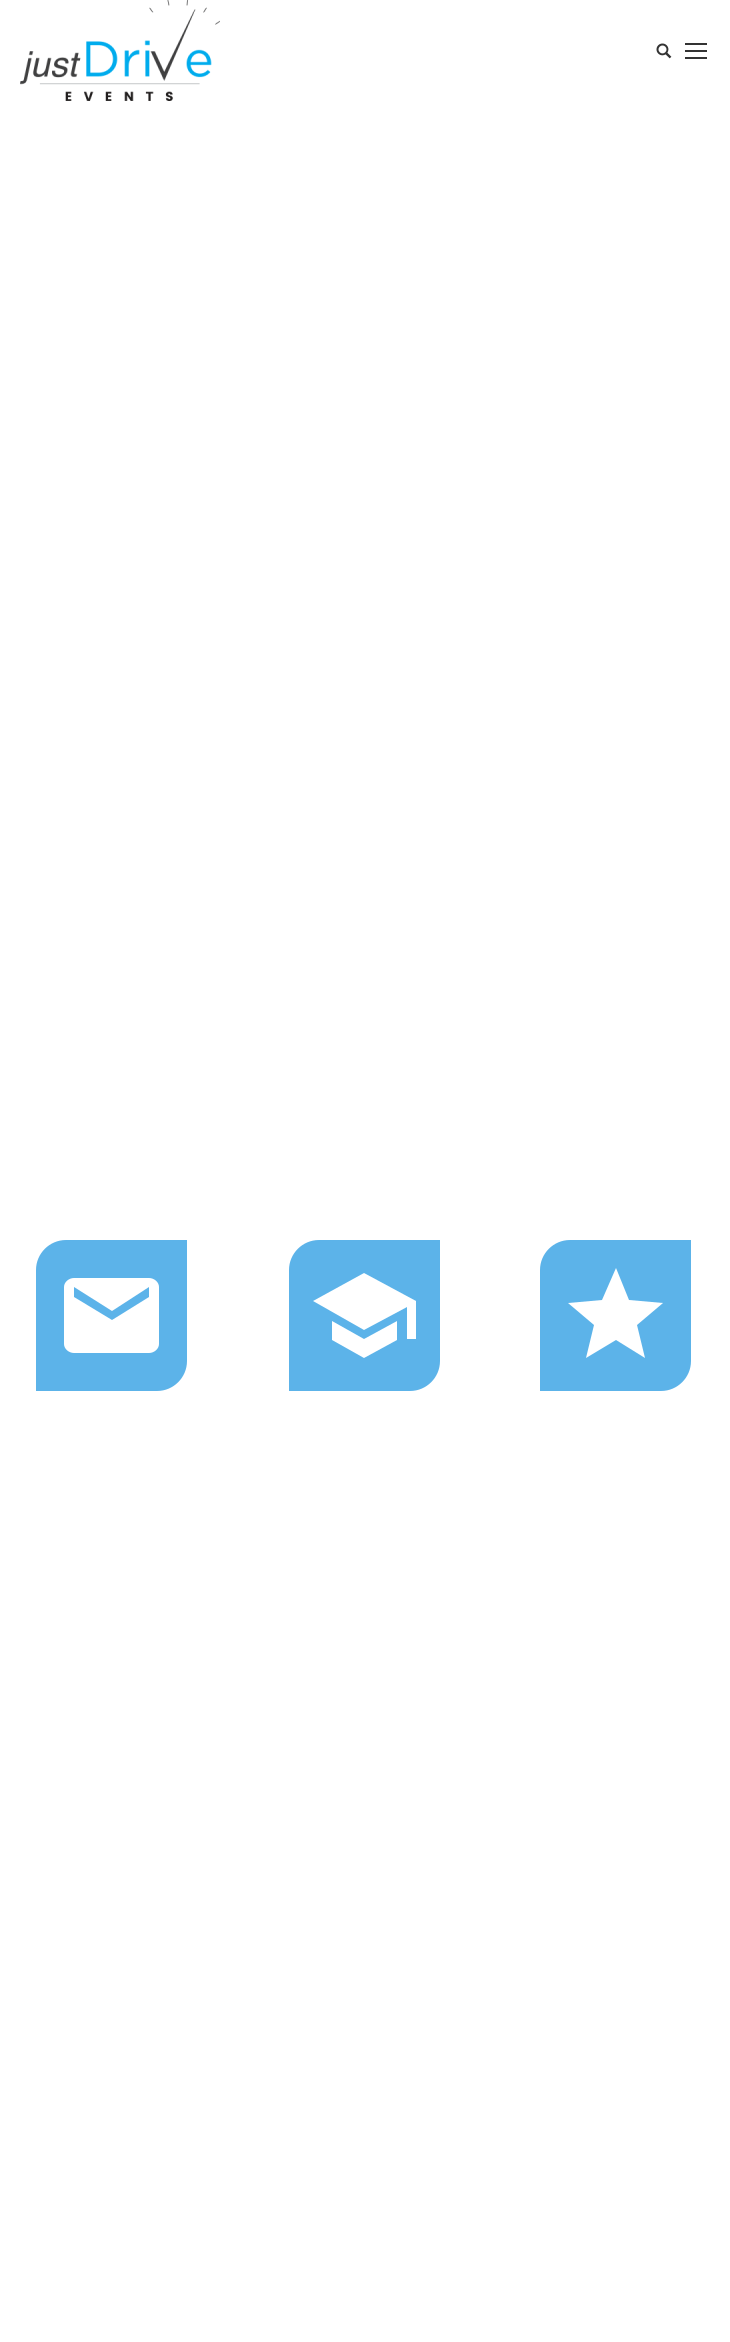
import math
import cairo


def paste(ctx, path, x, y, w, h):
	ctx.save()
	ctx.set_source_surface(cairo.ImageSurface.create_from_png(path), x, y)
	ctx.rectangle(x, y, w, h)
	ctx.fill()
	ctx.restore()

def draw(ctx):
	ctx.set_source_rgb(1, 1, 1)
	ctx.paint()
	paste(ctx, 'media/1.png', 20, 0, 200, 101)
	paste(ctx, 'media/2.png', 656, 43, 16, 16)
	ctx.set_source_rgb(0.2, 0.2, 0.2)
	ctx.rectangle(685, 50, 22, 2)
	ctx.rectangle(685, 43, 22, 2)
	ctx.rectangle(685, 57, 22, 2)
	ctx.fill()
	ctx.set_source_rgb(0.361, 0.702, 0.914)
	ctx.new_path()
	ctx.move_to(66, 1240)
	ctx.line_to(187, 1240)
	ctx.line_to(187, 1361)
	ctx.curve_to(187, 1377.5, 173.5, 1391, 157, 1391)
	ctx.line_to(36, 1391)
	ctx.line_to(36, 1270)
	ctx.curve_to(36, 1253.5, 49.5, 1240, 66, 1240)
	ctx.close_path()
	ctx.fill()
	ctx.set_source_rgb(1, 1, 1)
	ctx.new_path()
	ctx.move_to(149, 1278)
	ctx.line_to(74, 1278)
	ctx.curve_to(69, 1278, 64, 1282, 64, 1287)
	ctx.line_to(64, 1344)
	ctx.curve_to(64, 1349, 69, 1353, 74, 1353)
	ctx.line_to(149, 1353)
	ctx.curve_to(154, 1353, 159, 1349, 159, 1344)
	ctx.line_to(159, 1287)
	ctx.curve_to(159, 1282, 154, 1278, 149, 1278)
	ctx.close_path()
	ctx.move_to(149, 1297)
	ctx.line_to(112, 1320)
	ctx.line_to(74, 1297)
	ctx.line_to(74, 1287)
	ctx.line_to(112, 1311)
	ctx.line_to(149, 1287)
	ctx.close_path()
	ctx.fill()
	ctx.set_source_rgb(0.361, 0.702, 0.914)
	ctx.new_path()
	ctx.move_to(319, 1240)
	ctx.line_to(440, 1240)
	ctx.line_to(440, 1361)
	ctx.curve_to(440, 1377.5, 426.5, 1391, 410, 1391)
	ctx.line_to(289, 1391)
	ctx.line_to(289, 1270)
	ctx.curve_to(289, 1253.5, 302.5, 1240, 319, 1240)
	ctx.close_path()
	ctx.fill()
	ctx.set_source_rgb(1, 1, 1)
	ctx.new_path()
	ctx.move_to(332, 1321)
	ctx.line_to(332, 1340)
	ctx.line_to(364, 1358)
	ctx.line_to(397, 1340)
	ctx.line_to(397, 1321)
	ctx.line_to(364, 1339)
	ctx.close_path()
	ctx.move_to(364, 1273)
	ctx.line_to(313, 1301)
	ctx.line_to(364, 1330)
	ctx.line_to(407, 1307)
	ctx.line_to(407, 1339)
	ctx.line_to(416, 1339)
	ctx.line_to(416, 1301)
	ctx.close_path()
	ctx.fill()
	ctx.set_source_rgb(0.361, 0.702, 0.914)
	ctx.new_path()
	ctx.move_to(570, 1240)
	ctx.line_to(691, 1240)
	ctx.line_to(691, 1361)
	ctx.curve_to(691, 1377.5, 677.5, 1391, 661, 1391)
	ctx.line_to(540, 1391)
	ctx.line_to(540, 1270)
	ctx.curve_to(540, 1253.5, 553.5, 1240, 570, 1240)
	ctx.close_path()
	ctx.fill()
	ctx.set_source_rgb(1, 1, 1)
	ctx.new_path()
	ctx.move_to(616, 1340)
	ctx.line_to(645, 1358)
	ctx.line_to(637, 1325)
	ctx.line_to(663, 1303)
	ctx.line_to(629, 1300)
	ctx.line_to(616, 1268)
	ctx.line_to(602, 1300)
	ctx.line_to(568, 1303)
	ctx.line_to(594, 1325)
	ctx.line_to(586, 1358)
	ctx.close_path()
	ctx.fill()


surface = cairo.ImageSurface(cairo.FORMAT_RGB24, 730, 2342)
ctx = cairo.Context(surface)
options = cairo.FontOptions()
options.set_hint_metrics(cairo.HINT_METRICS_OFF)
options.set_hint_style(cairo.HINT_STYLE_NONE)
ctx.set_font_options(options)
ctx.set_miter_limit(4)
draw(ctx)
surface.write_to_png('image.png')
